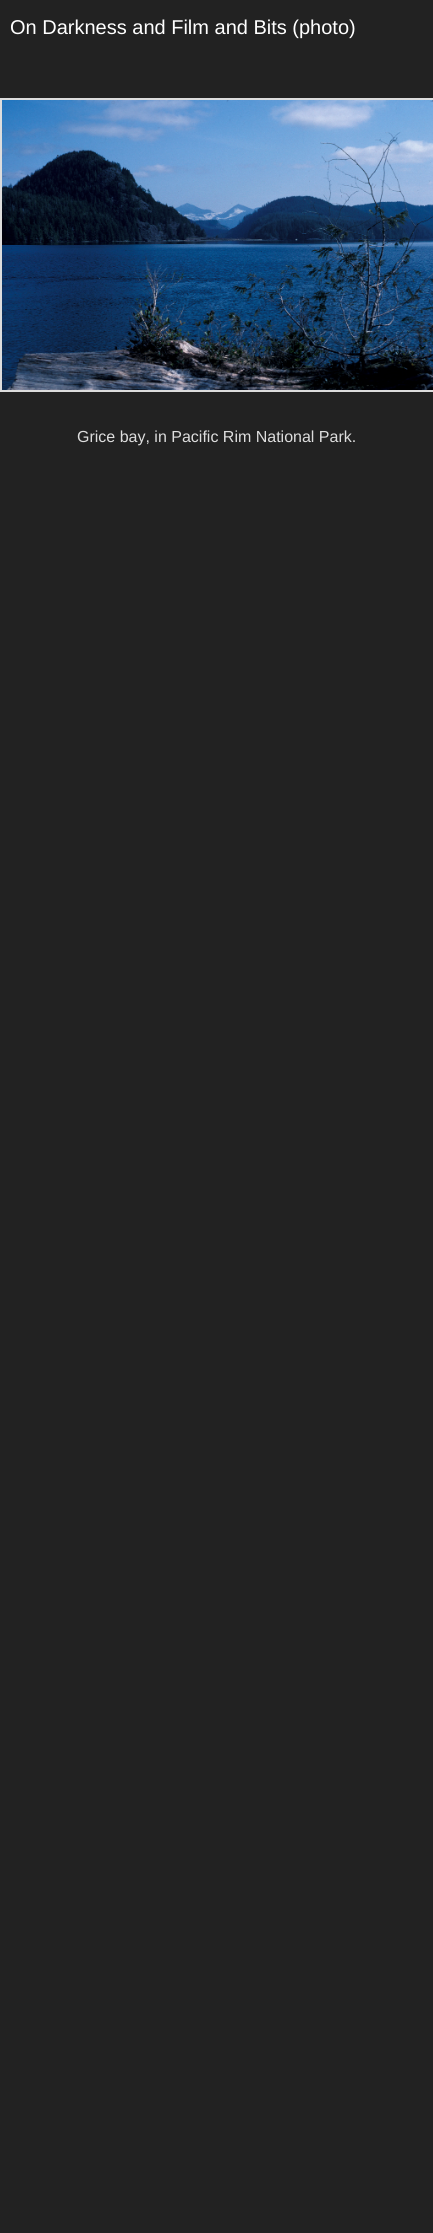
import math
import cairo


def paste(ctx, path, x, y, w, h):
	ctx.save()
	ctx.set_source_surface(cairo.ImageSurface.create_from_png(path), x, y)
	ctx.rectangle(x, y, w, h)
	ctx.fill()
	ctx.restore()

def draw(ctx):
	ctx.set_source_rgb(0.133, 0.133, 0.133)
	ctx.paint()
	ctx.select_font_face('Liberation Sans')
	ctx.set_font_size(20)
	ctx.set_source_rgb(1, 1, 1)
	ctx.move_to(10, 34)
	ctx.show_text('On Darkness and Film and Bits (photo)')
	ctx.rectangle(1, 99, 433, 292)
	ctx.set_source_rgb(0.867, 0.867, 0.867)
	ctx.stroke()
	paste(ctx, 'media/1.png', 2, 100, 431, 290)
	ctx.set_font_size(16)
	ctx.move_to(77, 442)
	ctx.show_text('Grice bay, in Pacific Rim National Park.')


surface = cairo.ImageSurface(cairo.FORMAT_RGB24, 433, 2233)
ctx = cairo.Context(surface)
options = cairo.FontOptions()
options.set_hint_metrics(cairo.HINT_METRICS_OFF)
options.set_hint_style(cairo.HINT_STYLE_NONE)
ctx.set_font_options(options)
ctx.set_miter_limit(4)
draw(ctx)
surface.write_to_png('image.png')
